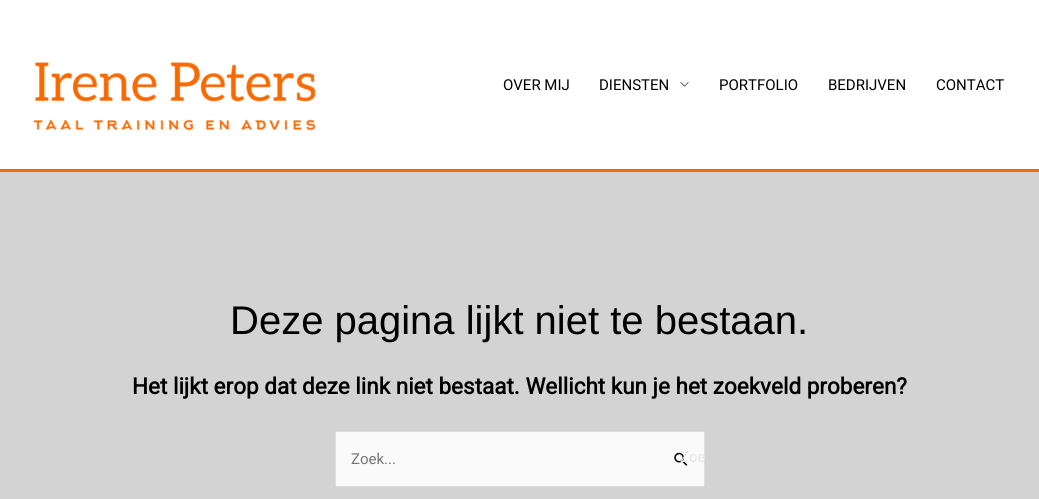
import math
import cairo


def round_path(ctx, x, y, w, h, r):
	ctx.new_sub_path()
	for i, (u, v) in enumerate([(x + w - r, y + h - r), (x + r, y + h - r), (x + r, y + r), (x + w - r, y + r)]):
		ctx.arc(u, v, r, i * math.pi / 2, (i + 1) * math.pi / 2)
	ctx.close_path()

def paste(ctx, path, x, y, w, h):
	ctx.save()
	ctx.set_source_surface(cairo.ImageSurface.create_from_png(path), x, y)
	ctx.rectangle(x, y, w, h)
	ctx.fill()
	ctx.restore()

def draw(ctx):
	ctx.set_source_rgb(0.827, 0.827, 0.827)
	ctx.paint()
	ctx.set_source_rgb(1, 1, 1)
	ctx.rectangle(0, 0, 1039, 169)
	ctx.fill()
	ctx.set_source_rgb(0.984, 0.404, 0)
	ctx.rectangle(0, 169, 1039, 3)
	ctx.fill()
	paste(ctx, 'media/1.png', 33, 62, 283, 69)
	ctx.select_font_face('Roboto')
	ctx.set_font_size(15)
	ctx.set_source_rgb(0, 0, 0)
	ctx.move_to(503, 90)
	ctx.show_text('OVER MIJ')
	ctx.move_to(599, 90)
	ctx.show_text('DIENSTEN')
	paste(ctx, 'media/2.png', 680, 82, 9, 5)
	for x, y, s in [
		(719, 90, 'PORTFOLIO'),
		(828, 90, 'BEDRIJVEN'),
		(936, 90, 'CONTACT'),
	]:
		ctx.move_to(x, y)
		ctx.show_text(s)
	ctx.select_font_face('Liberation Sans')
	ctx.set_font_size(40)
	ctx.move_to(230, 334)
	ctx.show_text('Deze pagina lijkt niet te bestaan.')
	ctx.select_font_face('Roboto', cairo.FONT_SLANT_NORMAL, cairo.FONT_WEIGHT_BOLD)
	ctx.set_font_size(22.5)
	ctx.move_to(132, 394)
	ctx.show_text('Het lijkt erop dat deze link niet bestaat. Wellicht kun je het zoekveld proberen?')
	ctx.set_source_rgb(0.98, 0.98, 0.98)
	round_path(ctx, 335.5, 431.5, 369, 55, 1.5)
	ctx.fill_preserve()
	ctx.set_source_rgb(0.867, 0.867, 0.867)
	ctx.set_line_width(1)
	ctx.stroke()
	ctx.select_font_face('Roboto')
	ctx.set_font_size(15)
	ctx.set_source_rgb(0.459, 0.459, 0.459)
	ctx.move_to(351, 464)
	ctx.show_text('Zoek...')
	paste(ctx, 'media/3.png', 674, 452, 14, 14)
	ctx.set_source_rgb(0.902, 0.902, 0.902)
	ctx.move_to(680, 462)
	ctx.show_text('Zoe')


surface = cairo.ImageSurface(cairo.FORMAT_RGB24, 1039, 499)
ctx = cairo.Context(surface)
options = cairo.FontOptions()
options.set_hint_metrics(cairo.HINT_METRICS_OFF)
options.set_hint_style(cairo.HINT_STYLE_NONE)
ctx.set_font_options(options)
ctx.set_miter_limit(4)
draw(ctx)
surface.write_to_png('image.png')
